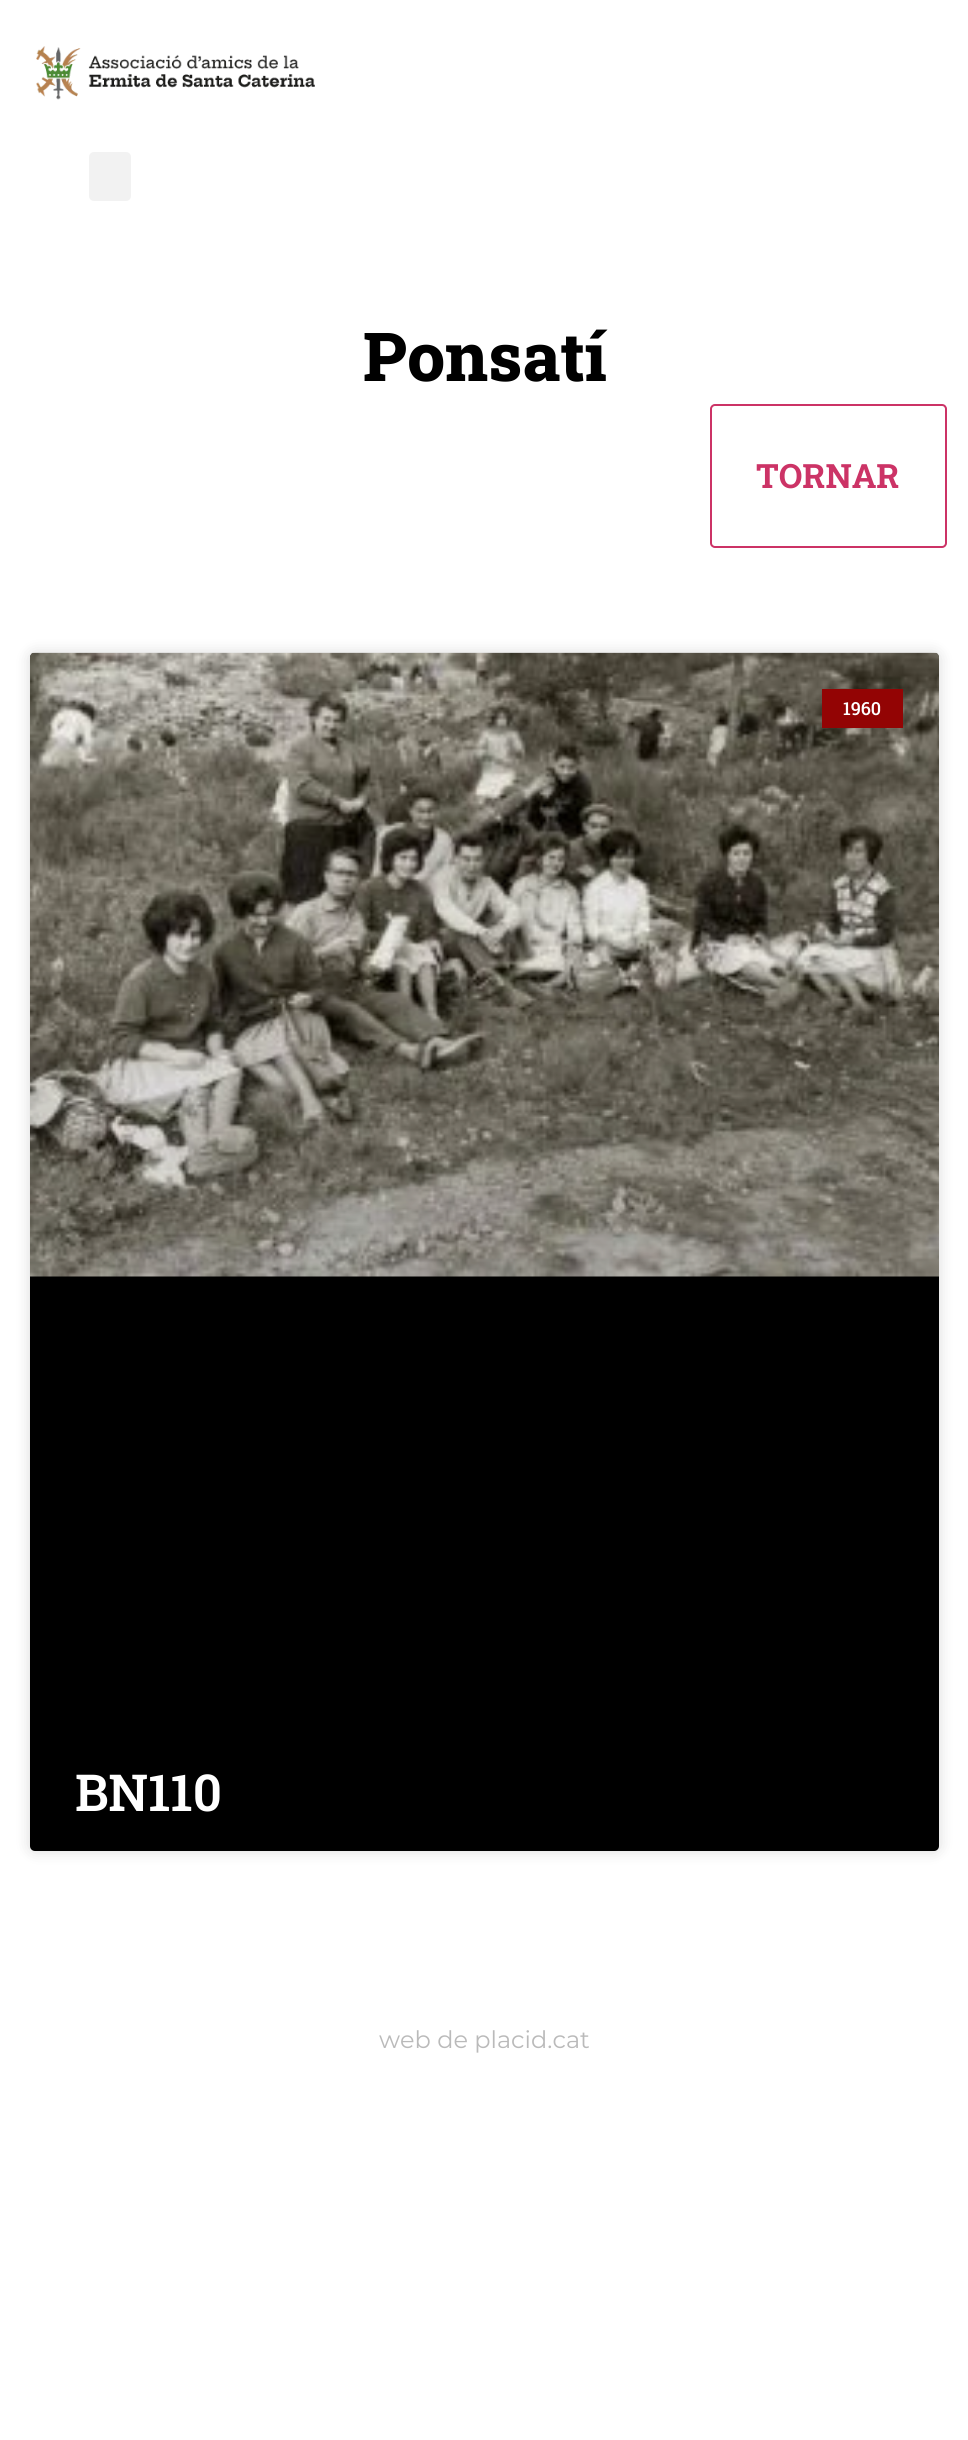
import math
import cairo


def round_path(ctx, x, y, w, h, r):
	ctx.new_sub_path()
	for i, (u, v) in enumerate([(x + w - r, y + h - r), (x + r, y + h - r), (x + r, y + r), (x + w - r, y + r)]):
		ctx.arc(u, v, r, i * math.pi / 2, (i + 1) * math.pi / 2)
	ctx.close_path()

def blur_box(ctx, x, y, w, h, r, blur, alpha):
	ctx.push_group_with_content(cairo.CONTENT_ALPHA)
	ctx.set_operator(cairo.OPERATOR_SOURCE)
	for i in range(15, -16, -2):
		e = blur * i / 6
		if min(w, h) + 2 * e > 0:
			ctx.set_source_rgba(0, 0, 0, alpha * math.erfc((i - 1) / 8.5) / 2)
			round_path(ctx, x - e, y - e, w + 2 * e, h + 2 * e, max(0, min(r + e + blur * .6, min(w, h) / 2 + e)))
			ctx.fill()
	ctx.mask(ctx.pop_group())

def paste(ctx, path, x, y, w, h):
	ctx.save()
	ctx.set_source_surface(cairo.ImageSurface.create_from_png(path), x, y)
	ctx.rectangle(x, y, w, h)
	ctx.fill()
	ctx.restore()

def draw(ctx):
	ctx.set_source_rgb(1, 1, 1)
	ctx.paint()
	paste(ctx, 'media/1.png', 36, 46, 279, 54)
	ctx.set_source_rgb(0.949, 0.949, 0.949)
	round_path(ctx, 89, 152, 42, 49, 5)
	ctx.fill()
	ctx.select_font_face('Roboto Slab ExtraBold')
	ctx.set_font_size(67.5)
	ctx.set_source_rgb(0, 0, 0)
	ctx.move_to(363, 381)
	ctx.show_text('Ponsatí')
	round_path(ctx, 711, 405, 235, 142, 4)
	ctx.set_source_rgb(0.8, 0.2, 0.4)
	ctx.stroke()
	ctx.select_font_face('Roboto Slab', cairo.FONT_SLANT_NORMAL, cairo.FONT_WEIGHT_BOLD)
	ctx.set_font_size(33.5)
	ctx.move_to(756, 488)
	ctx.show_text('TORNAR')
	ctx.set_source_rgb(0, 0, 0)
	blur_box(ctx, 30, 653, 909, 1198, 5, 7.5, 0.15)
	ctx.set_source_rgb(0, 0, 0)
	round_path(ctx, 30, 653, 909, 1198, 5)
	ctx.fill()
	paste(ctx, 'media/2.png', 30, 652, 909, 625)
	gradient = cairo.LinearGradient(485, 1731, 485, 653)
	gradient.add_color_stop_rgba(0, 0, 0, 0, 0.35)
	gradient.add_color_stop_rgba(0.75, 0, 0, 0, 0)
	ctx.set_source(gradient)
	ctx.rectangle(30, 972, 909, 305)
	ctx.fill()
	ctx.set_source_rgb(0.576, 0.016, 0.016)
	ctx.rectangle(822, 689, 81, 39)
	ctx.fill()
	ctx.select_font_face('Roboto Slab Medium')
	ctx.set_font_size(18)
	ctx.set_source_rgb(1, 1, 1)
	ctx.move_to(843, 715)
	ctx.show_text('1960')
	ctx.select_font_face('Roboto Slab SemiBold')
	ctx.set_font_size(51)
	ctx.move_to(75, 1811)
	ctx.show_text('BN110')
	ctx.select_font_face('Montserrat')
	ctx.set_font_size(24)
	ctx.set_source_rgb(0.729, 0.729, 0.729)
	ctx.move_to(379, 2048)
	ctx.show_text('web de placid.cat')


surface = cairo.ImageSurface(cairo.FORMAT_RGB24, 968, 2440)
ctx = cairo.Context(surface)
options = cairo.FontOptions()
options.set_hint_metrics(cairo.HINT_METRICS_OFF)
options.set_hint_style(cairo.HINT_STYLE_NONE)
ctx.set_font_options(options)
ctx.set_miter_limit(4)
draw(ctx)
surface.write_to_png('image.png')
